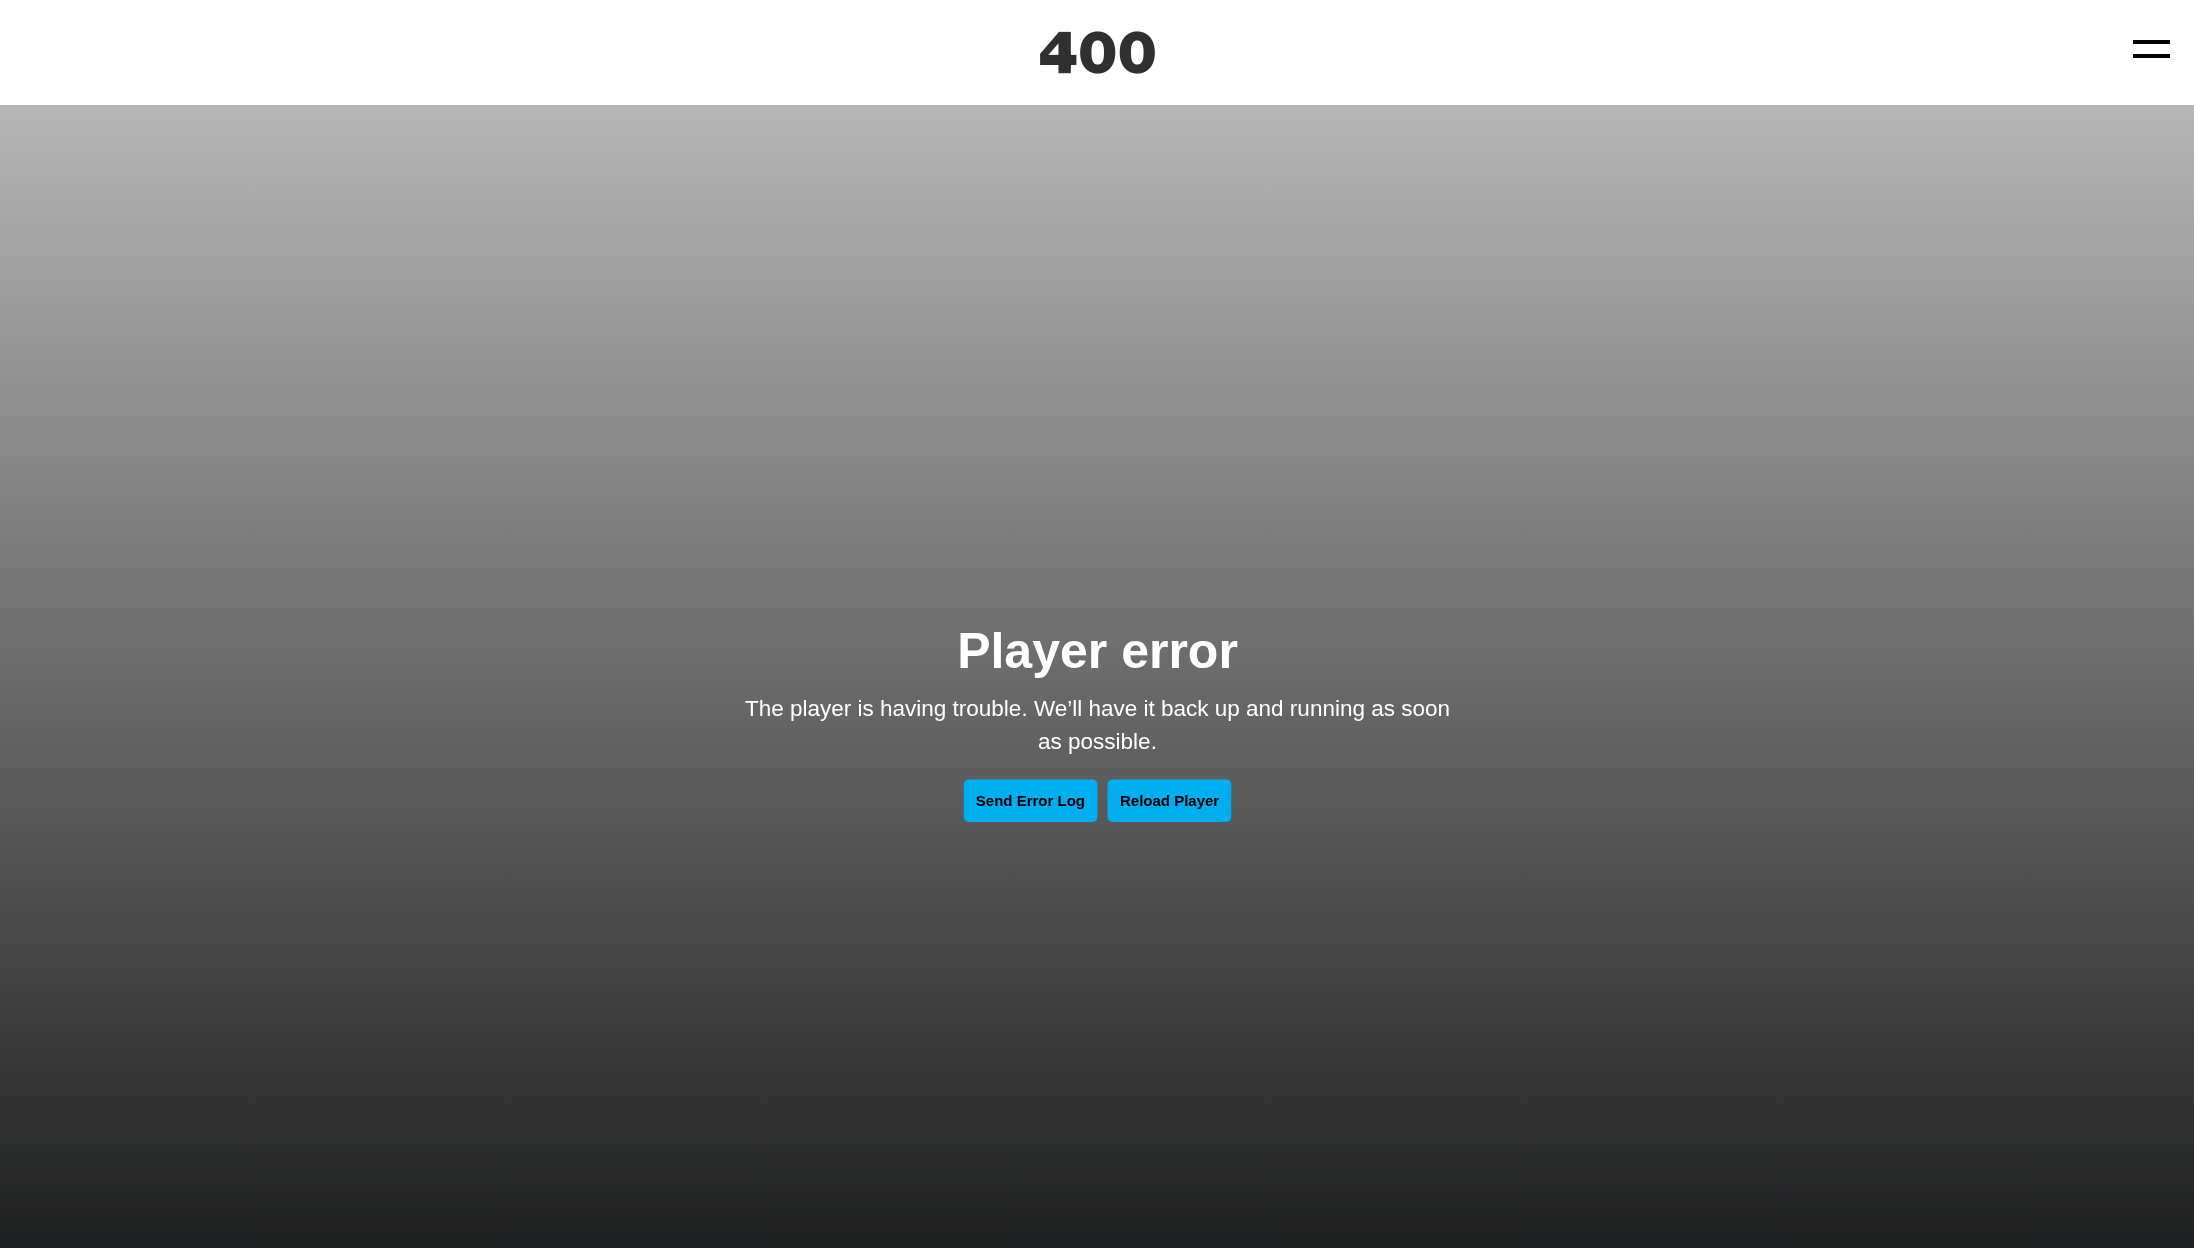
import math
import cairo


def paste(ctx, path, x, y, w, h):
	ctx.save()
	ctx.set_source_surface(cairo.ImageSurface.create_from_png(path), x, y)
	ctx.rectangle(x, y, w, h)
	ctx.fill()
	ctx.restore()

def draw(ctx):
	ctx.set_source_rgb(1, 1, 1)
	ctx.paint()
	paste(ctx, 'media/1.png', 1040, 31, 115, 43)
	ctx.set_source_rgb(0, 0, 0)
	ctx.rectangle(2133, 40, 37, 4)
	ctx.fill()
	ctx.rectangle(2133, 54, 37, 4)
	ctx.fill()
	paste(ctx, 'media/2.png', 0, 105, 2194, 1143)


surface = cairo.ImageSurface(cairo.FORMAT_RGB24, 2194, 1248)
ctx = cairo.Context(surface)
options = cairo.FontOptions()
options.set_hint_metrics(cairo.HINT_METRICS_OFF)
options.set_hint_style(cairo.HINT_STYLE_NONE)
ctx.set_font_options(options)
ctx.set_miter_limit(4)
draw(ctx)
surface.write_to_png('image.png')
